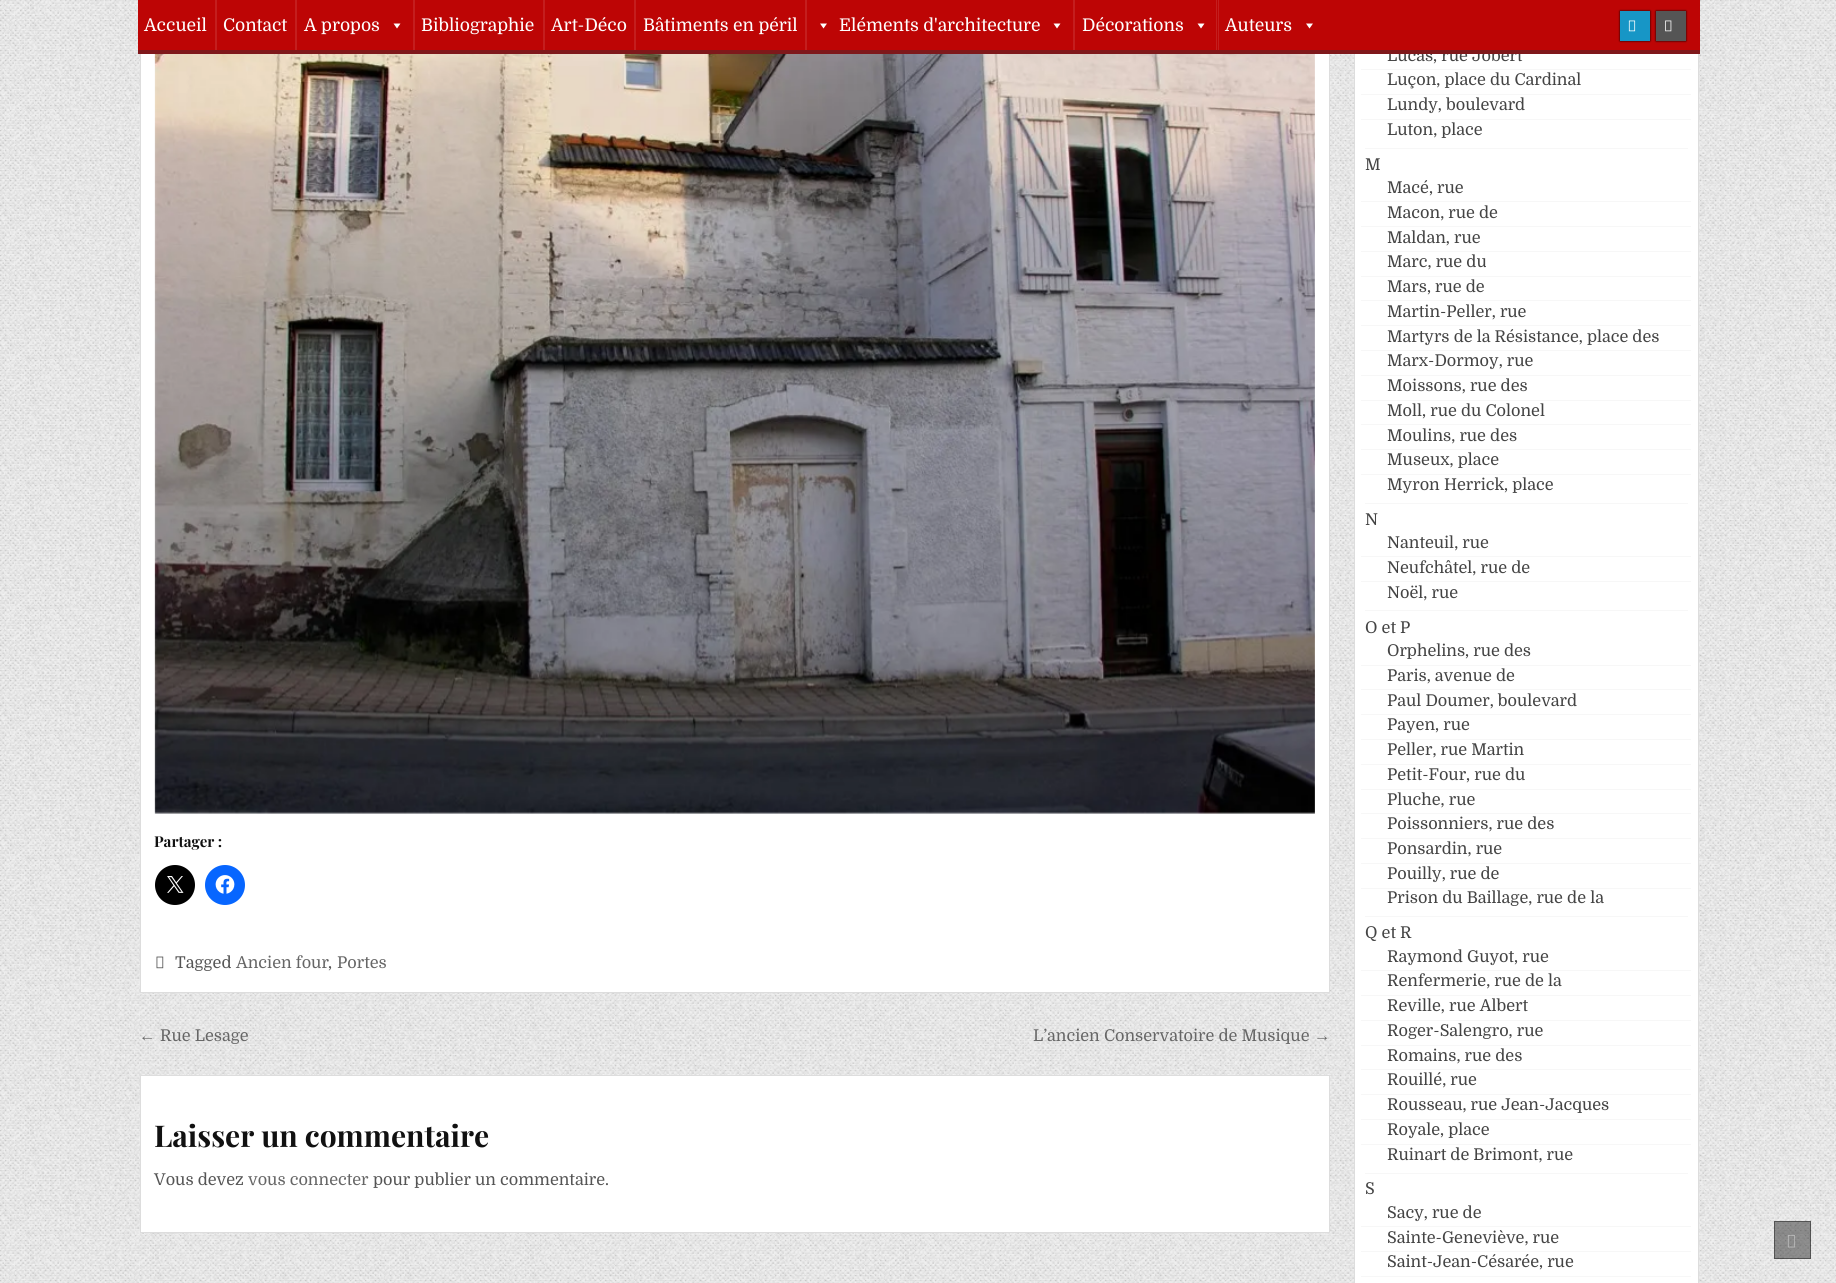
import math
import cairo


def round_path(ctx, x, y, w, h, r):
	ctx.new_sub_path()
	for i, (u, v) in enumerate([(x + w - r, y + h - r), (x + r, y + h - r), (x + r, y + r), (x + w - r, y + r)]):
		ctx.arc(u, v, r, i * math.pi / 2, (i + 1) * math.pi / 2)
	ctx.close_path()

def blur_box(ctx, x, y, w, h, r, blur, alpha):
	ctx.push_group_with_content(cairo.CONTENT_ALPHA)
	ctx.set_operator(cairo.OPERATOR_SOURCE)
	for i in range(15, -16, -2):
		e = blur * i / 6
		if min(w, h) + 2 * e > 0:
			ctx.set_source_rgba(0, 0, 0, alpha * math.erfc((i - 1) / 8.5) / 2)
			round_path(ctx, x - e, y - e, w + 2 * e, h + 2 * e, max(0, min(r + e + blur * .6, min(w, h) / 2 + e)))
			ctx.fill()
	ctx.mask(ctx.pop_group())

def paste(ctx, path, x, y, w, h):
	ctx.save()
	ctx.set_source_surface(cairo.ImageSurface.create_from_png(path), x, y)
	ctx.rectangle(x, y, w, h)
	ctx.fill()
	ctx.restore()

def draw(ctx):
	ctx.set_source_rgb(1, 1, 1)
	ctx.paint()
	paste(ctx, 'media/1.png', 0, 0, 1836, 1283)
	ctx.set_source_rgb(1, 1, 1)
	ctx.rectangle(141, 54, 1188, 938)
	ctx.fill()
	ctx.rectangle(140.5, -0.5, 1189, 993)
	ctx.set_source_rgb(0.867, 0.867, 0.867)
	ctx.set_line_width(1)
	ctx.stroke()
	ctx.set_source_rgb(1, 1, 1)
	ctx.rectangle(1355, 54, 343, 1229)
	ctx.fill()
	ctx.rectangle(1354.5, -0.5, 344, 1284)
	ctx.set_source_rgb(0.867, 0.867, 0.867)
	ctx.stroke()
	ctx.select_font_face('Domine')
	ctx.set_font_size(16.25)
	ctx.set_source_rgb(0.267, 0.267, 0.267)
	ctx.move_to(1387, 61)
	ctx.show_text('Lucas, rue Jobert')
	ctx.set_source_rgb(0.498, 0.094, 0.106)
	ctx.rectangle(138, 50, 1562, 4)
	ctx.fill()
	ctx.set_source_rgb(0.741, 0.02, 0.02)
	ctx.rectangle(138, 0, 1562, 50)
	ctx.fill()
	ctx.set_font_size(17.5)
	ctx.set_source_rgb(1, 1, 1)
	ctx.move_to(144, 31)
	ctx.show_text('Accueil')
	ctx.set_source_rgb(0.769, 0.118, 0.118)
	ctx.rectangle(215, 0, 2, 50)
	ctx.fill()
	ctx.set_source_rgb(1, 1, 1)
	ctx.move_to(223, 31)
	ctx.show_text('Contact')
	ctx.set_source_rgb(0.769, 0.118, 0.118)
	ctx.rectangle(295, 0, 2, 50)
	ctx.fill()
	ctx.set_source_rgb(1, 1, 1)
	ctx.move_to(304, 31)
	ctx.show_text('A propos')
	ctx.new_path()
	ctx.move_to(400.5, 23.5)
	ctx.line_to(397, 28.5)
	ctx.line_to(393.5, 23.5)
	ctx.close_path()
	ctx.fill()
	ctx.set_source_rgb(0.769, 0.118, 0.118)
	ctx.rectangle(413, 0, 2, 50)
	ctx.fill()
	ctx.set_source_rgb(1, 1, 1)
	ctx.move_to(421, 31)
	ctx.show_text('Bibliographie')
	ctx.set_source_rgb(0.769, 0.118, 0.118)
	ctx.rectangle(543, 0, 2, 50)
	ctx.fill()
	ctx.set_source_rgb(1, 1, 1)
	ctx.move_to(551, 31)
	ctx.show_text('Art-Déco')
	ctx.set_source_rgb(0.769, 0.118, 0.118)
	ctx.rectangle(634, 0, 2, 50)
	ctx.fill()
	ctx.set_source_rgb(1, 1, 1)
	ctx.move_to(643, 31)
	ctx.show_text('Bâtiments en péril')
	ctx.set_source_rgb(0.769, 0.118, 0.118)
	ctx.rectangle(805, 0, 2, 50)
	ctx.fill()
	ctx.set_source_rgb(1, 1, 1)
	ctx.new_path()
	ctx.move_to(827, 23.5)
	ctx.line_to(823.5, 28.5)
	ctx.line_to(820, 23.5)
	ctx.close_path()
	ctx.fill()
	ctx.move_to(839, 31)
	ctx.show_text('Eléments d\'architecture')
	ctx.new_path()
	ctx.move_to(1060.5, 23.5)
	ctx.line_to(1057, 28.5)
	ctx.line_to(1053.5, 23.5)
	ctx.close_path()
	ctx.fill()
	ctx.set_source_rgb(0.769, 0.118, 0.118)
	ctx.rectangle(1073, 0, 2, 50)
	ctx.fill()
	ctx.set_source_rgb(1, 1, 1)
	ctx.move_to(1082, 31)
	ctx.show_text('Décorations')
	ctx.new_path()
	ctx.move_to(1204.5, 23.5)
	ctx.line_to(1201, 28.5)
	ctx.line_to(1197.5, 23.5)
	ctx.close_path()
	ctx.fill()
	ctx.set_source_rgb(0.769, 0.118, 0.118)
	ctx.rectangle(1218, 0, 1, 50)
	ctx.fill()
	ctx.rectangle(1216, 0, 1, 50)
	ctx.fill()
	ctx.set_source_rgb(1, 1, 1)
	ctx.move_to(1225, 31)
	ctx.show_text('Auteurs')
	ctx.new_path()
	ctx.move_to(1313, 23.5)
	ctx.line_to(1309.5, 28.5)
	ctx.line_to(1306, 23.5)
	ctx.close_path()
	ctx.fill()
	ctx.set_source_rgb(0, 0, 0)
	blur_box(ctx, 1620, 11, 30, 30, 0, 1, 1)
	ctx.set_source_rgb(0.09, 0.588, 0.776)
	ctx.rectangle(1620, 11, 30, 30)
	ctx.fill()
	paste(ctx, 'media/2.png', 1628, 20, 8, 12)
	ctx.set_source_rgb(0, 0, 0)
	blur_box(ctx, 1656, 11, 30, 30, 0, 1, 1)
	ctx.set_source_rgb(0.333, 0.333, 0.333)
	ctx.rectangle(1656, 11, 30, 30)
	ctx.fill()
	paste(ctx, 'media/3.png', 1665, 20, 7, 12)
	paste(ctx, 'media/4.png', 154, 54, 1161, 760)
	ctx.select_font_face('Playfair Display', cairo.FONT_SLANT_NORMAL, cairo.FONT_WEIGHT_BOLD)
	ctx.set_font_size(15)
	ctx.set_source_rgb(0.067, 0.067, 0.067)
	ctx.move_to(154, 847)
	ctx.show_text('Partager :')
	ctx.set_source_rgb(0, 0, 0)
	ctx.new_path()
	ctx.arc(175, 885, 20, 0, 2 * math.pi)
	ctx.fill()
	paste(ctx, 'media/5.png', 167, 876, 17, 17)
	ctx.set_source_rgb(0.031, 0.4, 1)
	ctx.arc(225, 885, 20, 0, 2 * math.pi)
	ctx.fill()
	paste(ctx, 'media/6.png', 215, 875, 20, 19)
	paste(ctx, 'media/7.png', 156, 956, 8, 13)
	ctx.select_font_face('Domine')
	ctx.set_font_size(16.25)
	ctx.set_source_rgb(0.333, 0.333, 0.333)
	ctx.move_to(175, 968)
	ctx.show_text('Tagged')
	ctx.set_source_rgb(0.4, 0.4, 0.4)
	ctx.move_to(236, 968)
	ctx.show_text('Ancien four')
	ctx.set_source_rgb(0.333, 0.333, 0.333)
	ctx.move_to(328, 968)
	ctx.show_text(',')
	ctx.set_source_rgb(0.4, 0.4, 0.4)
	ctx.move_to(337, 968)
	ctx.show_text('Portes')
	ctx.select_font_face('Liberation Sans')
	ctx.move_to(139, 1041)
	ctx.show_text('←')
	ctx.select_font_face('Domine')
	ctx.move_to(160, 1041)
	ctx.show_text('Rue Lesage')
	ctx.move_to(1033, 1041)
	ctx.show_text('L’ancien Conservatoire de Musique')
	ctx.select_font_face('Liberation Sans')
	ctx.move_to(1314, 1041)
	ctx.show_text('→')
	ctx.set_source_rgb(1, 1, 1)
	ctx.rectangle(140.5, 1075.5, 1189, 157)
	ctx.fill_preserve()
	ctx.set_source_rgb(0.867, 0.867, 0.867)
	ctx.stroke()
	ctx.select_font_face('Playfair Display', cairo.FONT_SLANT_NORMAL, cairo.FONT_WEIGHT_BOLD)
	ctx.set_font_size(30)
	ctx.set_source_rgb(0.067, 0.067, 0.067)
	ctx.move_to(154, 1147)
	ctx.show_text('Laisser un commentaire')
	ctx.select_font_face('Domine')
	ctx.set_font_size(16.25)
	ctx.set_source_rgb(0.333, 0.333, 0.333)
	ctx.move_to(154, 1185)
	ctx.show_text('Vous devez')
	ctx.set_source_rgb(0.4, 0.4, 0.4)
	ctx.move_to(248, 1185)
	ctx.show_text('vous connecter')
	ctx.set_source_rgb(0.333, 0.333, 0.333)
	ctx.move_to(373, 1185)
	ctx.show_text('pour publier un commentaire.')
	ctx.set_source_rgb(0.965, 0.965, 0.965)
	ctx.rectangle(1365, 148, 323, 1)
	ctx.rectangle(1361, 69, 330, 1)
	ctx.rectangle(1361, 94, 330, 1)
	ctx.fill()
	ctx.set_source_rgb(0.267, 0.267, 0.267)
	ctx.move_to(1387, 85)
	ctx.show_text('Luçon, place du Cardinal')
	ctx.set_source_rgb(0.965, 0.965, 0.965)
	ctx.rectangle(1361, 119, 330, 1)
	ctx.fill()
	ctx.set_source_rgb(0.267, 0.267, 0.267)
	ctx.move_to(1387, 110)
	ctx.show_text('Lundy, boulevard')
	ctx.move_to(1387, 135)
	ctx.show_text('Luton, place')
	ctx.set_source_rgb(0.965, 0.965, 0.965)
	ctx.rectangle(1365, 503, 323, 1)
	ctx.fill()
	ctx.set_source_rgb(0.267, 0.267, 0.267)
	ctx.move_to(1365, 170)
	ctx.show_text('M')
	ctx.set_source_rgb(0.965, 0.965, 0.965)
	ctx.rectangle(1361, 201, 330, 1)
	ctx.fill()
	ctx.set_source_rgb(0.267, 0.267, 0.267)
	ctx.move_to(1387, 193)
	ctx.show_text('Macé, rue')
	ctx.set_source_rgb(0.965, 0.965, 0.965)
	ctx.rectangle(1361, 226, 330, 1)
	ctx.fill()
	ctx.set_source_rgb(0.267, 0.267, 0.267)
	ctx.move_to(1387, 218)
	ctx.show_text('Macon, rue de')
	ctx.set_source_rgb(0.965, 0.965, 0.965)
	ctx.rectangle(1361, 251, 330, 1)
	ctx.fill()
	ctx.set_source_rgb(0.267, 0.267, 0.267)
	ctx.move_to(1387, 243)
	ctx.show_text('Maldan, rue')
	ctx.set_source_rgb(0.965, 0.965, 0.965)
	ctx.rectangle(1361, 276, 330, 1)
	ctx.fill()
	ctx.set_source_rgb(0.267, 0.267, 0.267)
	ctx.move_to(1387, 267)
	ctx.show_text('Marc, rue du')
	ctx.set_source_rgb(0.965, 0.965, 0.965)
	ctx.rectangle(1361, 300, 330, 1)
	ctx.fill()
	ctx.set_source_rgb(0.267, 0.267, 0.267)
	ctx.move_to(1387, 292)
	ctx.show_text('Mars, rue de')
	ctx.set_source_rgb(0.965, 0.965, 0.965)
	ctx.rectangle(1361, 325, 330, 1)
	ctx.fill()
	ctx.set_source_rgb(0.267, 0.267, 0.267)
	ctx.move_to(1387, 317)
	ctx.show_text('Martin-Peller, rue')
	ctx.set_source_rgb(0.965, 0.965, 0.965)
	ctx.rectangle(1361, 350, 330, 1)
	ctx.fill()
	ctx.set_source_rgb(0.267, 0.267, 0.267)
	ctx.move_to(1387, 342)
	ctx.show_text('Martyrs de la Résistance, place des')
	ctx.set_source_rgb(0.965, 0.965, 0.965)
	ctx.rectangle(1361, 375, 330, 1)
	ctx.fill()
	ctx.set_source_rgb(0.267, 0.267, 0.267)
	ctx.move_to(1387, 366)
	ctx.show_text('Marx-Dormoy, rue')
	ctx.set_source_rgb(0.965, 0.965, 0.965)
	ctx.rectangle(1361, 400, 330, 1)
	ctx.fill()
	ctx.set_source_rgb(0.267, 0.267, 0.267)
	ctx.move_to(1387, 391)
	ctx.show_text('Moissons, rue des')
	ctx.set_source_rgb(0.965, 0.965, 0.965)
	ctx.rectangle(1361, 424, 330, 1)
	ctx.fill()
	ctx.set_source_rgb(0.267, 0.267, 0.267)
	ctx.move_to(1387, 416)
	ctx.show_text('Moll, rue du Colonel')
	ctx.set_source_rgb(0.965, 0.965, 0.965)
	ctx.rectangle(1361, 449, 330, 1)
	ctx.fill()
	ctx.set_source_rgb(0.267, 0.267, 0.267)
	ctx.move_to(1387, 441)
	ctx.show_text('Moulins, rue des')
	ctx.set_source_rgb(0.965, 0.965, 0.965)
	ctx.rectangle(1361, 474, 330, 1)
	ctx.fill()
	ctx.set_source_rgb(0.267, 0.267, 0.267)
	ctx.move_to(1387, 465)
	ctx.show_text('Museux, place')
	ctx.move_to(1387, 490)
	ctx.show_text('Myron Herrick, place')
	ctx.set_source_rgb(0.965, 0.965, 0.965)
	ctx.rectangle(1365, 610, 323, 1)
	ctx.fill()
	ctx.set_source_rgb(0.267, 0.267, 0.267)
	ctx.move_to(1365, 525)
	ctx.show_text('N')
	ctx.set_source_rgb(0.965, 0.965, 0.965)
	ctx.rectangle(1361, 556, 330, 1)
	ctx.fill()
	ctx.set_source_rgb(0.267, 0.267, 0.267)
	ctx.move_to(1387, 548)
	ctx.show_text('Nanteuil, rue')
	ctx.set_source_rgb(0.965, 0.965, 0.965)
	ctx.rectangle(1361, 581, 330, 1)
	ctx.fill()
	ctx.set_source_rgb(0.267, 0.267, 0.267)
	ctx.move_to(1387, 573)
	ctx.show_text('Neufchâtel, rue de')
	ctx.move_to(1387, 598)
	ctx.show_text('Noël, rue')
	ctx.set_source_rgb(0.965, 0.965, 0.965)
	ctx.rectangle(1365, 916, 323, 1)
	ctx.fill()
	ctx.set_source_rgb(0.267, 0.267, 0.267)
	ctx.move_to(1365, 633)
	ctx.show_text('O et P')
	ctx.set_source_rgb(0.965, 0.965, 0.965)
	ctx.rectangle(1361, 665, 330, 1)
	ctx.fill()
	ctx.set_source_rgb(0.267, 0.267, 0.267)
	ctx.move_to(1387, 656)
	ctx.show_text('Orphelins, rue des')
	ctx.set_source_rgb(0.965, 0.965, 0.965)
	ctx.rectangle(1361, 689, 330, 1)
	ctx.fill()
	ctx.set_source_rgb(0.267, 0.267, 0.267)
	ctx.move_to(1387, 681)
	ctx.show_text('Paris, avenue de')
	ctx.set_source_rgb(0.965, 0.965, 0.965)
	ctx.rectangle(1361, 714, 330, 1)
	ctx.fill()
	ctx.set_source_rgb(0.267, 0.267, 0.267)
	ctx.move_to(1387, 706)
	ctx.show_text('Paul Doumer, boulevard')
	ctx.set_source_rgb(0.965, 0.965, 0.965)
	ctx.rectangle(1361, 739, 330, 1)
	ctx.fill()
	ctx.set_source_rgb(0.267, 0.267, 0.267)
	ctx.move_to(1387, 730)
	ctx.show_text('Payen, rue')
	ctx.set_source_rgb(0.965, 0.965, 0.965)
	ctx.rectangle(1361, 764, 330, 1)
	ctx.fill()
	ctx.set_source_rgb(0.267, 0.267, 0.267)
	ctx.move_to(1387, 755)
	ctx.show_text('Peller, rue Martin')
	ctx.set_source_rgb(0.965, 0.965, 0.965)
	ctx.rectangle(1361, 789, 330, 1)
	ctx.fill()
	ctx.set_source_rgb(0.267, 0.267, 0.267)
	ctx.move_to(1387, 780)
	ctx.show_text('Petit-Four, rue du')
	ctx.set_source_rgb(0.965, 0.965, 0.965)
	ctx.rectangle(1361, 813, 330, 1)
	ctx.fill()
	ctx.set_source_rgb(0.267, 0.267, 0.267)
	ctx.move_to(1387, 805)
	ctx.show_text('Pluche, rue')
	ctx.set_source_rgb(0.965, 0.965, 0.965)
	ctx.rectangle(1361, 838, 330, 1)
	ctx.fill()
	ctx.set_source_rgb(0.267, 0.267, 0.267)
	ctx.move_to(1387, 829)
	ctx.show_text('Poissonniers, rue des')
	ctx.set_source_rgb(0.965, 0.965, 0.965)
	ctx.rectangle(1361, 863, 330, 1)
	ctx.fill()
	ctx.set_source_rgb(0.267, 0.267, 0.267)
	ctx.move_to(1387, 854)
	ctx.show_text('Ponsardin, rue')
	ctx.set_source_rgb(0.965, 0.965, 0.965)
	ctx.rectangle(1361, 888, 330, 1)
	ctx.fill()
	ctx.set_source_rgb(0.267, 0.267, 0.267)
	ctx.move_to(1387, 879)
	ctx.show_text('Pouilly, rue de')
	ctx.move_to(1387, 903)
	ctx.show_text('Prison du Baillage, rue de la')
	ctx.set_source_rgb(0.965, 0.965, 0.965)
	ctx.rectangle(1365, 1173, 323, 1)
	ctx.fill()
	ctx.set_source_rgb(0.267, 0.267, 0.267)
	ctx.move_to(1365, 938)
	ctx.show_text('Q et R')
	ctx.set_source_rgb(0.965, 0.965, 0.965)
	ctx.rectangle(1361, 970, 330, 1)
	ctx.fill()
	ctx.set_source_rgb(0.267, 0.267, 0.267)
	ctx.move_to(1387, 962)
	ctx.show_text('Raymond Guyot, rue')
	ctx.set_source_rgb(0.965, 0.965, 0.965)
	ctx.rectangle(1361, 995, 330, 1)
	ctx.fill()
	ctx.set_source_rgb(0.267, 0.267, 0.267)
	ctx.move_to(1387, 986)
	ctx.show_text('Renfermerie, rue de la')
	ctx.set_source_rgb(0.965, 0.965, 0.965)
	ctx.rectangle(1361, 1020, 330, 1)
	ctx.fill()
	ctx.set_source_rgb(0.267, 0.267, 0.267)
	ctx.move_to(1387, 1011)
	ctx.show_text('Reville, rue Albert')
	ctx.set_source_rgb(0.965, 0.965, 0.965)
	ctx.rectangle(1361, 1045, 330, 1)
	ctx.fill()
	ctx.set_source_rgb(0.267, 0.267, 0.267)
	ctx.move_to(1387, 1036)
	ctx.show_text('Roger-Salengro, rue')
	ctx.set_source_rgb(0.965, 0.965, 0.965)
	ctx.rectangle(1361, 1069, 330, 1)
	ctx.fill()
	ctx.set_source_rgb(0.267, 0.267, 0.267)
	ctx.move_to(1387, 1061)
	ctx.show_text('Romains, rue des')
	ctx.set_source_rgb(0.965, 0.965, 0.965)
	ctx.rectangle(1361, 1094, 330, 1)
	ctx.fill()
	ctx.set_source_rgb(0.267, 0.267, 0.267)
	ctx.move_to(1387, 1085)
	ctx.show_text('Rouillé, rue')
	ctx.set_source_rgb(0.965, 0.965, 0.965)
	ctx.rectangle(1361, 1119, 330, 1)
	ctx.fill()
	ctx.set_source_rgb(0.267, 0.267, 0.267)
	ctx.move_to(1387, 1110)
	ctx.show_text('Rousseau, rue Jean-Jacques')
	ctx.set_source_rgb(0.965, 0.965, 0.965)
	ctx.rectangle(1361, 1144, 330, 1)
	ctx.fill()
	ctx.set_source_rgb(0.267, 0.267, 0.267)
	for x, y, s in [
		(1387, 1135, 'Royale, place'),
		(1387, 1160, 'Ruinart de Brimont, rue'),
		(1365, 1194, 'S'),
	]:
		ctx.move_to(x, y)
		ctx.show_text(s)
	ctx.set_source_rgb(0.965, 0.965, 0.965)
	ctx.rectangle(1361, 1226, 330, 1)
	ctx.fill()
	ctx.set_source_rgb(0.267, 0.267, 0.267)
	ctx.move_to(1387, 1218)
	ctx.show_text('Sacy, rue de')
	ctx.set_source_rgb(0.965, 0.965, 0.965)
	ctx.rectangle(1361, 1251, 330, 1)
	ctx.fill()
	ctx.set_source_rgb(0.267, 0.267, 0.267)
	ctx.move_to(1387, 1243)
	ctx.show_text('Sainte-Geneviève, rue')
	ctx.set_source_rgb(0.965, 0.965, 0.965)
	ctx.rectangle(1361, 1276, 330, 1)
	ctx.fill()
	ctx.set_source_rgb(0.267, 0.267, 0.267)
	ctx.move_to(1387, 1267)
	ctx.show_text('Saint-Jean-Césarée, rue')
	ctx.set_source_rgba(0, 0, 0, 0.4)
	ctx.rectangle(1774, 1221, 37, 38)
	ctx.fill()
	ctx.rectangle(1774.5, 1221.5, 36, 37)
	ctx.stroke()
	paste(ctx, 'media/8.png', 1787, 1235, 9, 13)


surface = cairo.ImageSurface(cairo.FORMAT_RGB24, 1836, 1283)
ctx = cairo.Context(surface)
options = cairo.FontOptions()
options.set_hint_metrics(cairo.HINT_METRICS_OFF)
options.set_hint_style(cairo.HINT_STYLE_NONE)
ctx.set_font_options(options)
ctx.set_miter_limit(4)
draw(ctx)
surface.write_to_png('image.png')
